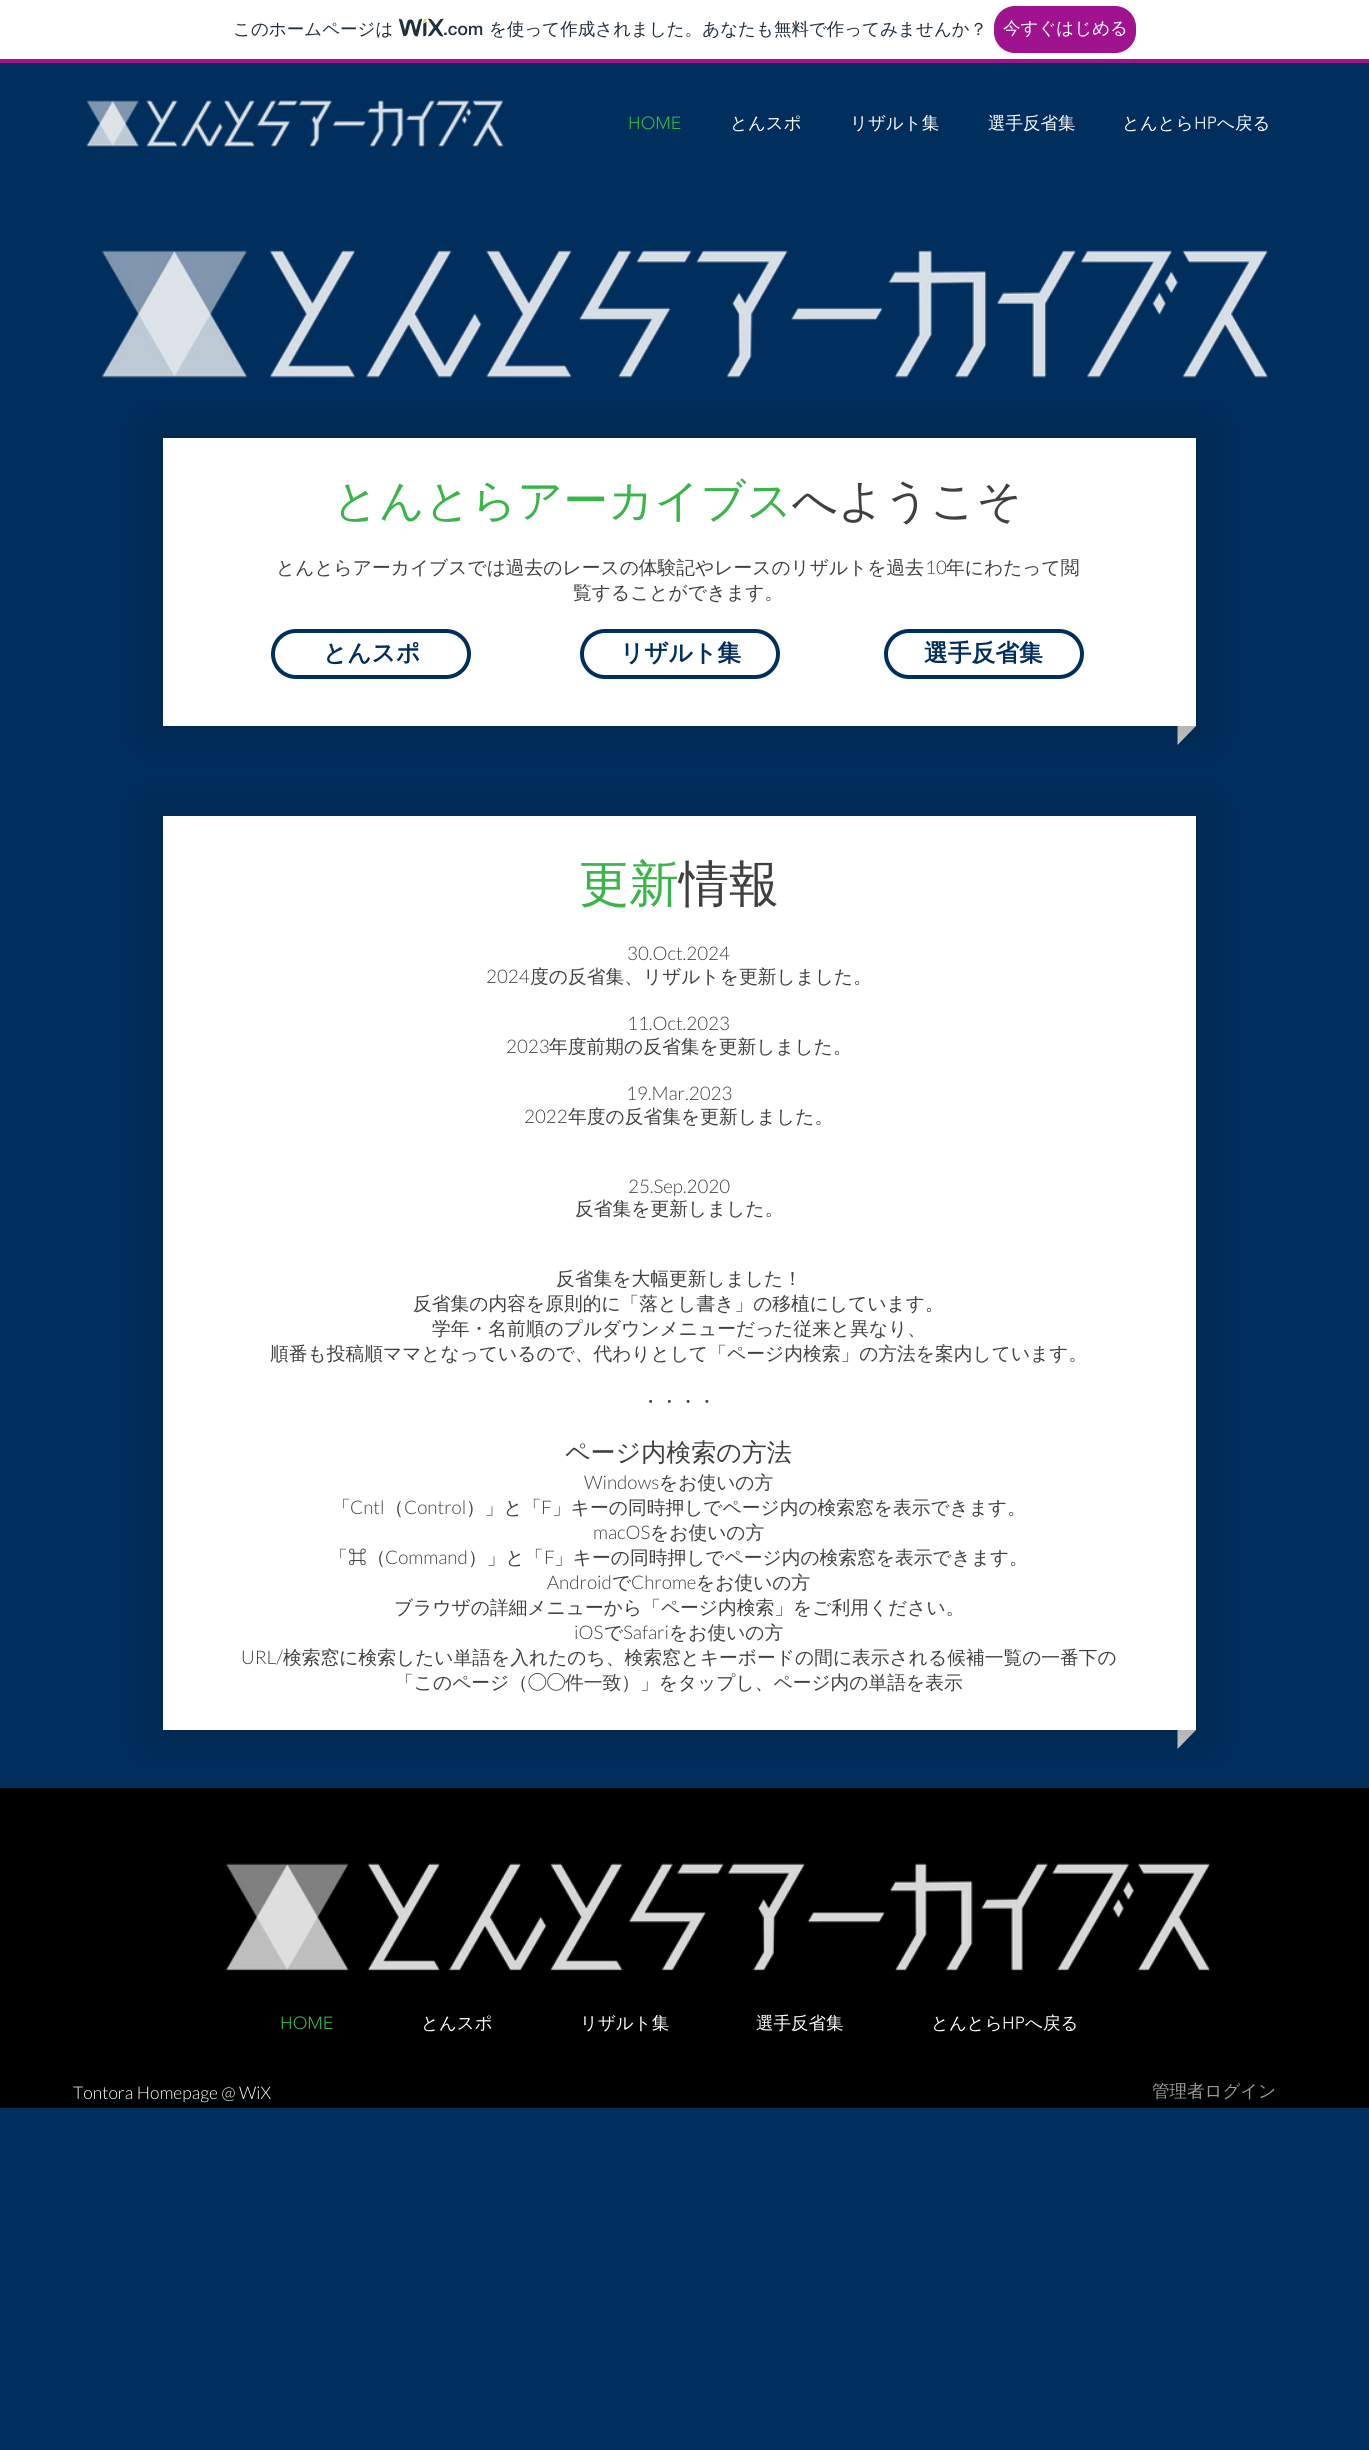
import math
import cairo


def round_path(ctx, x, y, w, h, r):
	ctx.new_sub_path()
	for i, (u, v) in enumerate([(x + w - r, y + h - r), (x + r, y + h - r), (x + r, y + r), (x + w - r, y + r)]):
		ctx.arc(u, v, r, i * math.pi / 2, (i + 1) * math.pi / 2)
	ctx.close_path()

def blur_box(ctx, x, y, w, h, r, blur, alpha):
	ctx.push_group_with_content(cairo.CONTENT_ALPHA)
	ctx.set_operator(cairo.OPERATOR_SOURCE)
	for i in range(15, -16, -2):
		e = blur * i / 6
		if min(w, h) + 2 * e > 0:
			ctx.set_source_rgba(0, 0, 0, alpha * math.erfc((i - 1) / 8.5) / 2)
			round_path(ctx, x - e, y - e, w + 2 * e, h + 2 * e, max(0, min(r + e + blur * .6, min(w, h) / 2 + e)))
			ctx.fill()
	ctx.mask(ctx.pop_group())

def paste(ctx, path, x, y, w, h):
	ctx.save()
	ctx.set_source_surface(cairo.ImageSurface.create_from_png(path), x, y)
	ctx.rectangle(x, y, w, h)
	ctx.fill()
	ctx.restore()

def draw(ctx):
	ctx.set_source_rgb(1, 1, 1)
	ctx.paint()
	ctx.set_source_rgb(0.627, 0.075, 0.557)
	ctx.rectangle(0, 59, 1369, 4)
	ctx.fill()
	ctx.select_font_face('WenQuanYi Zen Hei Medium')
	ctx.set_font_size(17.5)
	ctx.set_source_rgb(0.125, 0.188, 0.235)
	ctx.move_to(233, 35)
	ctx.show_text('このホームページは')
	paste(ctx, 'media/1.png', 399, 18, 45, 19)
	ctx.select_font_face('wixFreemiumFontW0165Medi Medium')
	ctx.move_to(443, 35)
	ctx.show_text('.com')
	ctx.select_font_face('WenQuanYi Zen Hei Medium')
	ctx.move_to(489, 35)
	ctx.show_text('を使って作成されました。あなたも無料で作ってみませんか？')
	ctx.set_source_rgb(0.627, 0.075, 0.557)
	round_path(ctx, 994.5, 6.5, 141, 46, 20.5)
	ctx.fill_preserve()
	ctx.set_line_width(1)
	ctx.stroke()
	ctx.set_source_rgb(1, 1, 1)
	ctx.move_to(1003, 34)
	ctx.show_text('今すぐはじめる')
	ctx.set_source_rgb(0, 0.18, 0.365)
	ctx.rectangle(0, 63, 1369, 2387)
	ctx.fill()
	paste(ctx, 'media/2.png', 86, 100, 418, 47)
	ctx.select_font_face('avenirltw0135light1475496 Light')
	ctx.set_source_rgb(0.224, 0.71, 0.29)
	ctx.move_to(628, 129)
	ctx.show_text('HOME')
	ctx.select_font_face('WenQuanYi Zen Hei Medium')
	ctx.set_source_rgb(1, 1, 1)
	for x, y, s in [
		(730, 129, 'とんスポ'),
		(850, 129, 'リザルト集'),
		(988, 129, '選手反省集'),
		(1122, 129, 'とんとら'),
	]:
		ctx.move_to(x, y)
		ctx.show_text(s)
	ctx.select_font_face('avenirltw0135light1475496 Light')
	ctx.move_to(1194, 129)
	ctx.show_text('HP')
	ctx.select_font_face('WenQuanYi Zen Hei Medium')
	ctx.move_to(1217, 129)
	ctx.show_text('へ戻る')
	paste(ctx, 'media/3.png', 101, 250, 1167, 128)
	ctx.set_source_rgb(0.8, 0.8, 0.8)
	ctx.new_path()
	ctx.move_to(1177.5, 726)
	ctx.line_to(1196, 726)
	ctx.line_to(1177.5, 745)
	ctx.close_path()
	ctx.fill()
	ctx.set_source_rgb(0, 0, 0)
	blur_box(ctx, 150, 425, 1059, 314, 0, 17, 0.15)
	ctx.set_source_rgb(1, 1, 1)
	ctx.rectangle(163, 438, 1033, 288)
	ctx.fill()
	ctx.set_font_size(45)
	ctx.set_source_rgb(0.224, 0.71, 0.29)
	ctx.move_to(333, 516)
	ctx.show_text('とんとらアーカイブス')
	ctx.set_source_rgb(0.251, 0.251, 0.251)
	ctx.move_to(792, 516)
	ctx.show_text('へようこそ')
	ctx.set_font_size(18.75)
	ctx.move_to(276, 574)
	ctx.show_text('とんとらアーカイブスでは過去のレースの体験記やレースのリザルトを過去')
	ctx.select_font_face('Lato Light')
	ctx.move_to(925, 574)
	ctx.show_text('10')
	ctx.select_font_face('WenQuanYi Zen Hei Medium')
	ctx.move_to(946, 574)
	ctx.show_text('年にわたって閲')
	ctx.move_to(573, 599)
	ctx.show_text('覧することができます。')
	round_path(ctx, 273, 631, 196, 46, 23)
	ctx.set_source_rgb(0, 0.18, 0.365)
	ctx.set_line_width(4)
	ctx.stroke()
	ctx.select_font_face('WenQuanYi Zen Hei', cairo.FONT_SLANT_NORMAL, cairo.FONT_WEIGHT_BOLD)
	ctx.set_font_size(23.75)
	ctx.move_to(323, 661)
	ctx.show_text('とんスポ')
	round_path(ctx, 582, 631, 196, 46, 23)
	ctx.stroke()
	ctx.move_to(620, 661)
	ctx.show_text('リザルト集')
	round_path(ctx, 886, 631, 196, 46, 23)
	ctx.stroke()
	ctx.move_to(924, 661)
	ctx.show_text('選手反省集')
	ctx.set_source_rgb(0.8, 0.8, 0.8)
	ctx.new_path()
	ctx.move_to(1177.5, 1730)
	ctx.line_to(1196, 1730)
	ctx.line_to(1177.5, 1749)
	ctx.close_path()
	ctx.fill()
	ctx.set_source_rgb(0, 0, 0)
	blur_box(ctx, 150, 804, 1059, 939, 0, 17, 0.15)
	ctx.set_source_rgb(1, 1, 1)
	ctx.rectangle(163, 816, 1033, 914)
	ctx.fill()
	ctx.select_font_face('WenQuanYi Zen Hei Medium')
	ctx.set_font_size(50)
	ctx.set_source_rgb(0.224, 0.71, 0.29)
	ctx.move_to(579, 901)
	ctx.show_text('更新')
	ctx.set_source_rgb(0.251, 0.251, 0.251)
	ctx.move_to(679, 901)
	ctx.show_text('情報')
	ctx.select_font_face('Lato Light')
	ctx.set_font_size(18.75)
	ctx.move_to(627, 960)
	ctx.show_text('30.Oct.2024')
	ctx.move_to(486, 983)
	ctx.show_text('2024')
	ctx.select_font_face('WenQuanYi Zen Hei Medium')
	ctx.move_to(530, 983)
	ctx.show_text('度の反省集、リザルトを更新しました。')
	ctx.select_font_face('Lato Light')
	ctx.move_to(627, 1030)
	ctx.show_text('11.Oct.2023')
	ctx.move_to(506, 1053)
	ctx.show_text('2023')
	ctx.select_font_face('WenQuanYi Zen Hei Medium')
	ctx.move_to(549, 1053)
	ctx.show_text('年度前期の反省集を更新しました。')
	ctx.select_font_face('Lato Light')
	ctx.move_to(626, 1100)
	ctx.show_text('19.Mar.2023')
	ctx.move_to(524, 1123)
	ctx.show_text('2022')
	ctx.select_font_face('WenQuanYi Zen Hei Medium')
	ctx.move_to(568, 1123)
	ctx.show_text('年度の反省集を更新しました。')
	ctx.select_font_face('Lato Light')
	ctx.move_to(628, 1193)
	ctx.show_text('25.Sep.2020')
	ctx.select_font_face('WenQuanYi Zen Hei Medium')
	for x, y, s in [
		(575, 1215, '反省集を更新しました。'),
		(556, 1285, '反省集を大幅更新しました！'),
		(413, 1310, '反省集の内容を原則的に「落とし書き」の移植にしています。'),
		(432, 1335, '学年・名前順のプルダウンメニューだった従来と異なり、'),
		(270, 1360, '順番も投稿順ママとなっているので、代わりとして「ページ内検索」の方法を案内しています。'),
		(641, 1408, '・・・・'),
	]:
		ctx.move_to(x, y)
		ctx.show_text(s)
	ctx.set_font_size(25)
	ctx.move_to(565, 1461)
	ctx.show_text('ページ内検索の方法')
	ctx.select_font_face('Lato Light')
	ctx.set_font_size(18.75)
	ctx.move_to(584, 1489)
	ctx.show_text('Windows')
	ctx.select_font_face('WenQuanYi Zen Hei Medium')
	ctx.move_to(659, 1489)
	ctx.show_text('をお使いの方')
	ctx.move_to(332, 1514)
	ctx.show_text('「')
	ctx.select_font_face('Lato Light')
	ctx.move_to(350, 1514)
	ctx.show_text('Cntl')
	ctx.select_font_face('WenQuanYi Zen Hei Medium')
	ctx.move_to(385, 1514)
	ctx.show_text('（')
	ctx.select_font_face('Lato Light')
	ctx.move_to(404, 1514)
	ctx.show_text('Control')
	ctx.select_font_face('WenQuanYi Zen Hei Medium')
	ctx.move_to(466, 1514)
	ctx.show_text('）」と「')
	ctx.select_font_face('Lato Light')
	ctx.move_to(541, 1514)
	ctx.show_text('F')
	ctx.select_font_face('WenQuanYi Zen Hei Medium')
	ctx.move_to(552, 1514)
	ctx.show_text('」キーの同時押しでページ内の検索窓を表示できます。')
	ctx.select_font_face('Lato Light')
	ctx.move_to(593, 1539)
	ctx.show_text('macOS')
	ctx.select_font_face('WenQuanYi Zen Hei Medium')
	ctx.move_to(650, 1539)
	ctx.show_text('をお使いの方')
	ctx.move_to(329, 1564)
	ctx.show_text('「')
	ctx.select_font_face('IPAPGothic')
	ctx.move_to(348, 1564)
	ctx.show_text('⌘')
	ctx.select_font_face('WenQuanYi Zen Hei Medium')
	ctx.move_to(367, 1564)
	ctx.show_text('（')
	ctx.select_font_face('Lato Light')
	ctx.move_to(385, 1564)
	ctx.show_text('Command')
	ctx.select_font_face('WenQuanYi Zen Hei Medium')
	ctx.move_to(468, 1564)
	ctx.show_text('）」と「')
	ctx.select_font_face('Lato Light')
	ctx.move_to(544, 1564)
	ctx.show_text('F')
	ctx.select_font_face('WenQuanYi Zen Hei Medium')
	ctx.move_to(554, 1564)
	ctx.show_text('」キーの同時押しでページ内の検索窓を表示できます。')
	ctx.select_font_face('Lato Light')
	ctx.move_to(547, 1589)
	ctx.show_text('Android')
	ctx.select_font_face('WenQuanYi Zen Hei Medium')
	ctx.move_to(612, 1589)
	ctx.show_text('で')
	ctx.select_font_face('Lato Light')
	ctx.move_to(631, 1589)
	ctx.show_text('Chrome')
	ctx.select_font_face('WenQuanYi Zen Hei Medium')
	ctx.move_to(696, 1589)
	ctx.show_text('をお使いの方')
	ctx.move_to(394, 1614)
	ctx.show_text('ブラウザの詳細メニューから「ページ内検索」をご利用ください。')
	ctx.select_font_face('Lato Light')
	ctx.move_to(574, 1639)
	ctx.show_text('iOS')
	ctx.select_font_face('WenQuanYi Zen Hei Medium')
	ctx.move_to(604, 1639)
	ctx.show_text('で')
	ctx.select_font_face('Lato Light')
	ctx.move_to(623, 1639)
	ctx.show_text('Safari')
	ctx.select_font_face('WenQuanYi Zen Hei Medium')
	ctx.move_to(669, 1639)
	ctx.show_text('をお使いの方')
	ctx.select_font_face('Lato Light')
	ctx.move_to(241, 1664)
	ctx.show_text('URL/')
	ctx.select_font_face('WenQuanYi Zen Hei Medium')
	ctx.move_to(283, 1664)
	ctx.show_text('検索窓に検索したい単語を入れたのち、検索窓とキーボードの間に表示される候補一覧の一番下の')
	ctx.move_to(395, 1689)
	ctx.show_text('「このページ（')
	ctx.select_font_face('IPAPGothic')
	ctx.move_to(528, 1689)
	ctx.show_text('◯◯')
	ctx.select_font_face('WenQuanYi Zen Hei Medium')
	ctx.move_to(565, 1689)
	ctx.show_text('件一致）」をタップし、ページ内の単語を表示')
	ctx.set_source_rgb(0, 0, 0)
	ctx.rectangle(0, 1788, 1369, 320)
	ctx.fill()
	paste(ctx, 'media/4.png', 226, 1863, 985, 108)
	ctx.select_font_face('avenirltw0135light1475496 Light')
	ctx.set_font_size(17.5)
	ctx.set_source_rgb(0.224, 0.71, 0.29)
	ctx.move_to(280, 2029)
	ctx.show_text('HOME')
	ctx.select_font_face('WenQuanYi Zen Hei Medium')
	ctx.set_source_rgb(1, 1, 1)
	for x, y, s in [
		(421, 2029, 'とんスポ'),
		(580, 2029, 'リザルト集'),
		(756, 2029, '選手反省集'),
		(931, 2029, 'とんとら'),
	]:
		ctx.move_to(x, y)
		ctx.show_text(s)
	ctx.select_font_face('avenirltw0135light1475496 Light')
	ctx.move_to(1002, 2029)
	ctx.show_text('HP')
	ctx.select_font_face('WenQuanYi Zen Hei Medium')
	ctx.move_to(1025, 2029)
	ctx.show_text('へ戻る')
	ctx.select_font_face('Lato Light')
	ctx.move_to(73, 2099)
	ctx.show_text('Tontora Homepage @ WiX')
	ctx.select_font_face('WenQuanYi Zen Hei Medium')
	ctx.set_source_rgb(0.612, 0.612, 0.612)
	ctx.move_to(1152, 2097)
	ctx.show_text('管理者ログイン')


surface = cairo.ImageSurface(cairo.FORMAT_RGB24, 1369, 2450)
ctx = cairo.Context(surface)
options = cairo.FontOptions()
options.set_hint_metrics(cairo.HINT_METRICS_OFF)
options.set_hint_style(cairo.HINT_STYLE_NONE)
ctx.set_font_options(options)
ctx.set_miter_limit(4)
draw(ctx)
surface.write_to_png('image.png')
